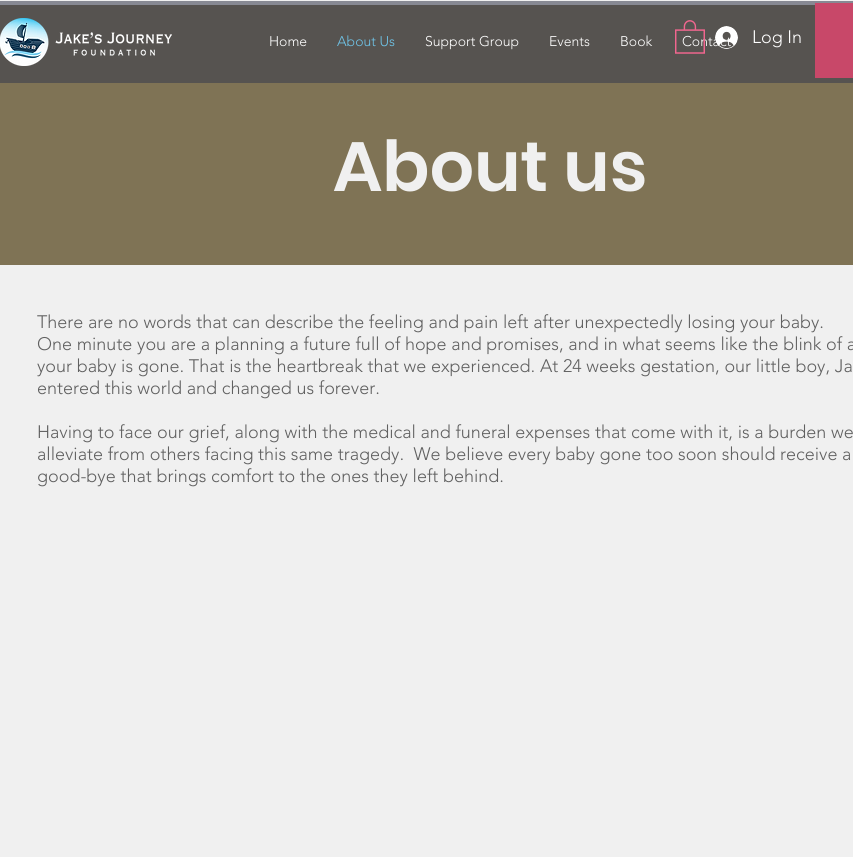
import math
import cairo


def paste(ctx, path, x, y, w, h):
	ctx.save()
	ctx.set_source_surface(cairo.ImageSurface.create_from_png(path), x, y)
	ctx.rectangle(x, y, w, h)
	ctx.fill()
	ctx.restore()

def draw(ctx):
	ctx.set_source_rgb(0.941, 0.941, 0.941)
	ctx.paint()
	ctx.set_source_rgb(0.529, 0.537, 0.576)
	ctx.rectangle(0, 1, 853, 4)
	ctx.fill()
	ctx.set_source_rgb(0.337, 0.325, 0.314)
	ctx.rectangle(0, 5, 853, 78)
	ctx.fill()
	paste(ctx, 'media/1.png', 0, 18, 172, 48)
	ctx.select_font_face('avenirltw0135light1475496 Light')
	ctx.set_font_size(14)
	ctx.set_source_rgb(1, 1, 1)
	ctx.move_to(269, 46)
	ctx.show_text('Home')
	ctx.set_source_rgb(0.435, 0.769, 0.91)
	ctx.move_to(337, 46)
	ctx.show_text('About Us')
	ctx.set_source_rgb(1, 1, 1)
	for x, y, s in [
		(425, 46, 'Support Group'),
		(549, 46, 'Events'),
		(620, 46, 'Book'),
		(682, 46, 'Contact'),
	]:
		ctx.move_to(x, y)
		ctx.show_text(s)
	paste(ctx, 'media/2.png', 675, 20, 30, 34)
	paste(ctx, 'media/3.png', 715, 26, 23, 23)
	ctx.set_font_size(18)
	ctx.move_to(752, 43)
	ctx.show_text('Log In')
	ctx.set_source_rgb(0.784, 0.282, 0.412)
	ctx.rectangle(815, 3, 38, 75)
	ctx.fill()
	ctx.set_source_rgb(0.498, 0.451, 0.333)
	ctx.rectangle(0, 83, 853, 182)
	ctx.fill()
	ctx.select_font_face('Poppins SemiBold')
	ctx.set_font_size(70)
	ctx.set_source_rgb(0.941, 0.941, 0.941)
	ctx.move_to(333, 191)
	ctx.show_text('About us')
	ctx.select_font_face('avenirltw0135light1475496 Light')
	ctx.set_font_size(18)
	ctx.set_source_rgb(0.376, 0.376, 0.376)
	for x, y, s in [
		(37, 328, 'There are no words that can describe the feeling and pain left after unexpectedly losing your baby.'),
		(37, 350, 'One minute you are a planning a future full of hope and promises, and in what seems like the blink of a'),
		(37, 372, 'your baby is gone. That is the heartbreak that we experienced. At 24 weeks gestation, our little boy, Ja'),
		(37, 394, 'entered this world and changed us forever.'),
		(37, 438, 'Having to face our grief, along with the medical and funeral expenses that come with it, is a burden we'),
		(37, 460, 'alleviate from others facing this same tragedy.  We believe every baby gone too soon should receive a'),
		(37, 482, 'good-bye that brings comfort to the ones they left behind.'),
	]:
		ctx.move_to(x, y)
		ctx.show_text(s)


surface = cairo.ImageSurface(cairo.FORMAT_RGB24, 853, 857)
ctx = cairo.Context(surface)
options = cairo.FontOptions()
options.set_hint_metrics(cairo.HINT_METRICS_OFF)
options.set_hint_style(cairo.HINT_STYLE_NONE)
ctx.set_font_options(options)
ctx.set_miter_limit(4)
draw(ctx)
surface.write_to_png('image.png')
